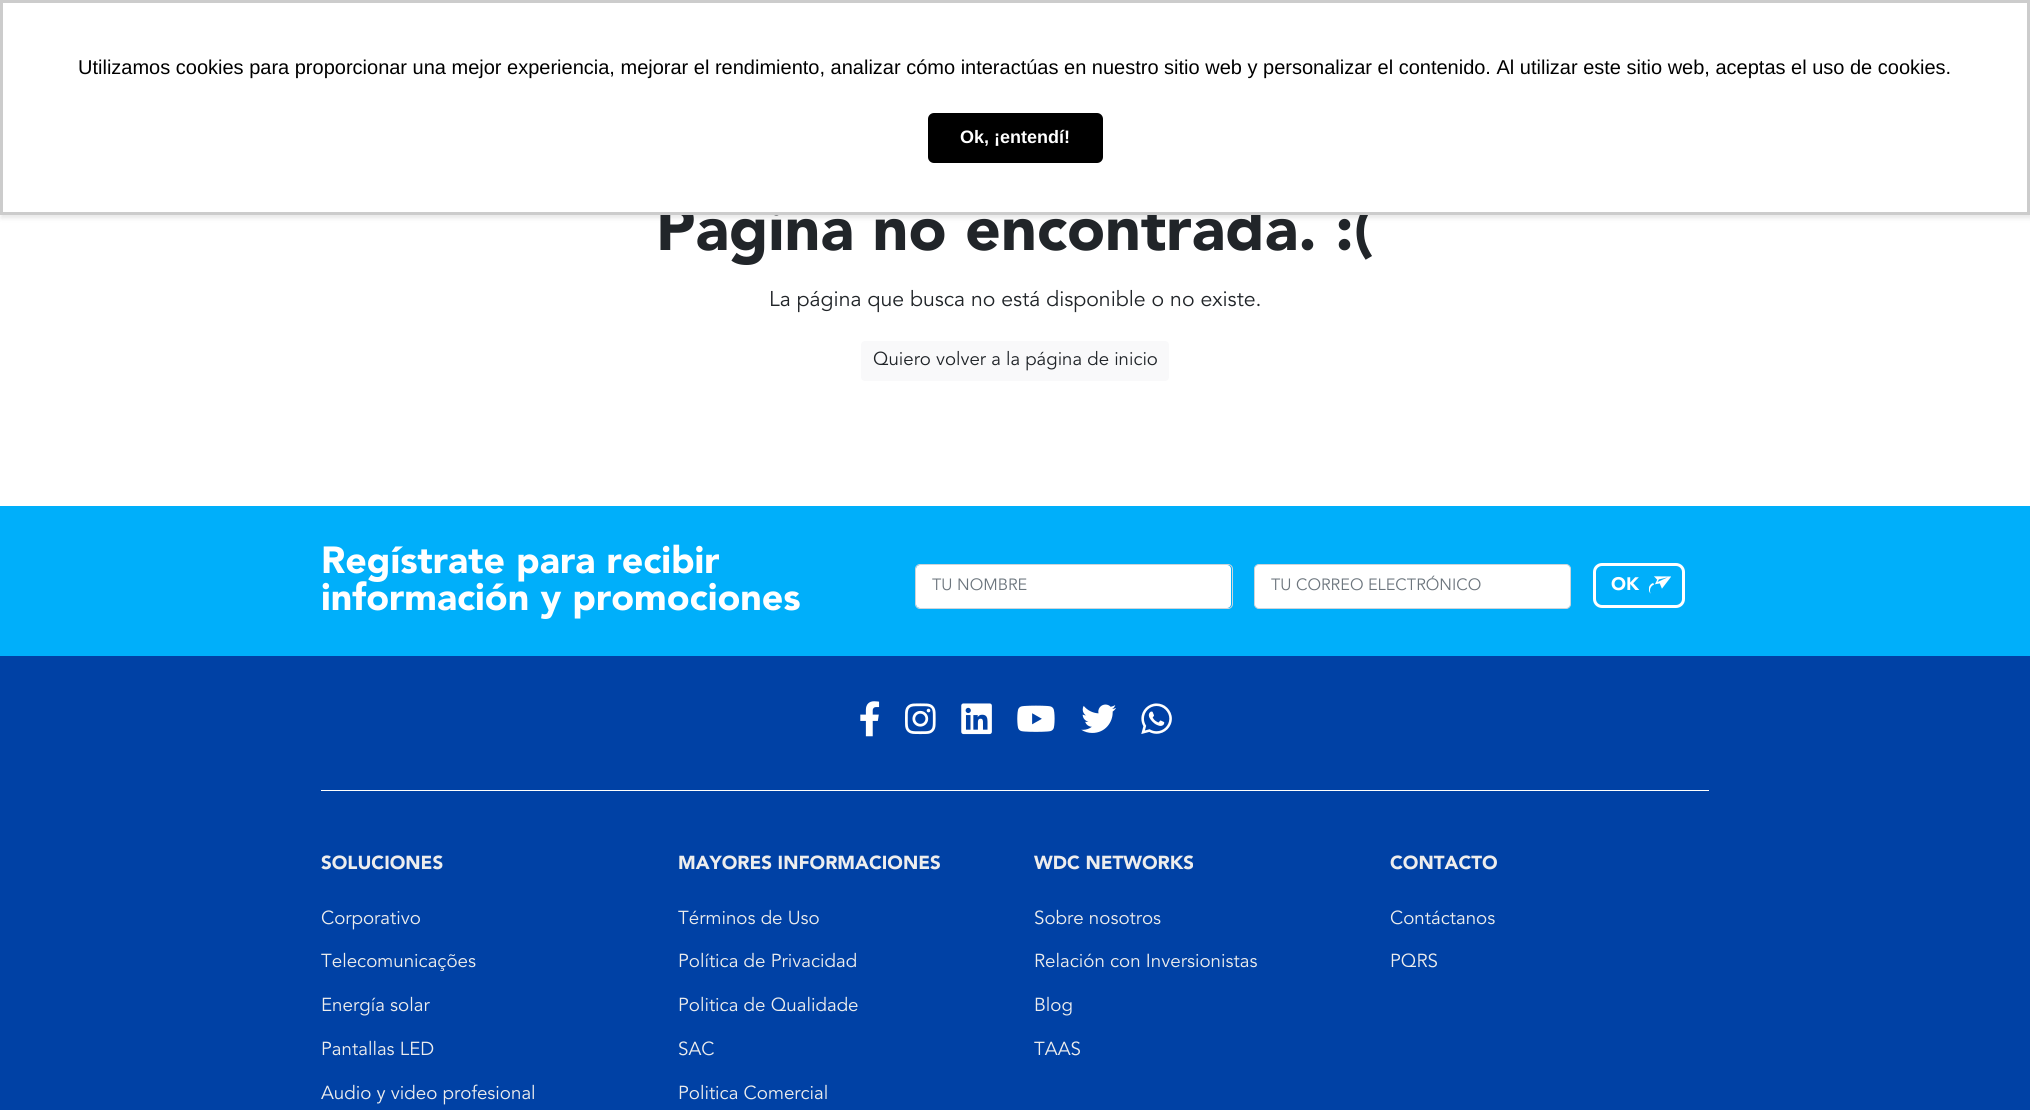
import math
import cairo


def round_path(ctx, x, y, w, h, r):
	ctx.new_sub_path()
	for i, (u, v) in enumerate([(x + w - r, y + h - r), (x + r, y + h - r), (x + r, y + r), (x + w - r, y + r)]):
		ctx.arc(u, v, r, i * math.pi / 2, (i + 1) * math.pi / 2)
	ctx.close_path()

def blur_box(ctx, x, y, w, h, r, blur, alpha):
	ctx.push_group_with_content(cairo.CONTENT_ALPHA)
	ctx.set_operator(cairo.OPERATOR_SOURCE)
	for i in range(15, -16, -2):
		e = blur * i / 6
		if min(w, h) + 2 * e > 0:
			ctx.set_source_rgba(0, 0, 0, alpha * math.erfc((i - 1) / 8.5) / 2)
			round_path(ctx, x - e, y - e, w + 2 * e, h + 2 * e, max(0, min(r + e + blur * .6, min(w, h) / 2 + e)))
			ctx.fill()
	ctx.mask(ctx.pop_group())

def paste(ctx, path, x, y, w, h):
	ctx.save()
	ctx.set_source_surface(cairo.ImageSurface.create_from_png(path), x, y)
	ctx.rectangle(x, y, w, h)
	ctx.fill()
	ctx.restore()

def draw(ctx):
	ctx.set_source_rgb(1, 1, 1)
	ctx.paint()
	ctx.set_source_rgb(0, 0, 0)
	blur_box(ctx, 1, 3, 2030, 215, 0, 2.5, 0.1)
	ctx.select_font_face('Avenir Black')
	ctx.set_font_size(62.5)
	ctx.set_source_rgb(0.129, 0.145, 0.161)
	ctx.move_to(656, 250)
	ctx.show_text('Página no encontrada. :(')
	ctx.set_source_rgb(1, 1, 1)
	ctx.rectangle(1.5, 1.5, 2027, 212)
	ctx.fill_preserve()
	ctx.set_source_rgb(0.8, 0.8, 0.8)
	ctx.set_line_width(3)
	ctx.stroke()
	ctx.select_font_face('Liberation Sans')
	ctx.set_font_size(20)
	ctx.set_source_rgb(0, 0, 0)
	ctx.move_to(78, 74)
	ctx.show_text('Utilizamos cookies para proporcionar una mejor experiencia, mejorar el rendimiento, analizar cómo interactúas en nuestro sitio web y personalizar el contenido. Al utilizar este sitio web, aceptas el uso de cookies.')
	round_path(ctx, 928, 113, 175, 50, 6)
	ctx.fill()
	ctx.select_font_face('Liberation Sans', cairo.FONT_SLANT_NORMAL, cairo.FONT_WEIGHT_BOLD)
	ctx.set_font_size(18)
	ctx.set_source_rgb(1, 1, 1)
	ctx.move_to(960, 143)
	ctx.show_text('Ok, ¡entendí!')
	ctx.select_font_face('Avenir')
	ctx.set_font_size(21.25)
	ctx.set_source_rgb(0.129, 0.145, 0.161)
	ctx.move_to(769, 306)
	ctx.show_text('La página que busca no está disponible o no existe.')
	ctx.set_source_rgb(0.973, 0.976, 0.98)
	round_path(ctx, 861, 341, 308, 40, 4)
	ctx.fill()
	ctx.set_font_size(18.6)
	ctx.set_source_rgb(0.129, 0.145, 0.161)
	ctx.move_to(873, 365)
	ctx.show_text('Quiero volver a la página de inicio')
	ctx.set_source_rgb(0, 0.686, 0.98)
	ctx.rectangle(0, 506, 2030, 150)
	ctx.fill()
	ctx.select_font_face('Avenir Black')
	ctx.set_font_size(37.5)
	ctx.set_source_rgb(1, 1, 1)
	ctx.move_to(321, 573)
	ctx.show_text('Regístrate para recibir')
	ctx.move_to(321, 610)
	ctx.show_text('información y promociones')
	round_path(ctx, 916, 565, 315, 43, 4)
	ctx.fill()
	round_path(ctx, 915.5, 564.5, 317, 44, 4.5)
	ctx.set_source_rgb(0.808, 0.831, 0.855)
	ctx.set_line_width(1)
	ctx.stroke()
	ctx.select_font_face('Avenir')
	ctx.set_font_size(16.25)
	ctx.set_source_rgb(0.424, 0.459, 0.49)
	ctx.move_to(932, 590)
	ctx.show_text('TU NOMBRE')
	ctx.set_source_rgb(1, 1, 1)
	round_path(ctx, 1254.5, 564.5, 316, 44, 4.5)
	ctx.fill_preserve()
	ctx.set_source_rgb(0.808, 0.831, 0.855)
	ctx.stroke()
	ctx.set_source_rgb(0.424, 0.459, 0.49)
	ctx.move_to(1271, 590)
	ctx.show_text('TU CORREO ELECTRÓNICO')
	round_path(ctx, 1594.5, 564.5, 89, 42, 7.5)
	ctx.set_source_rgb(1, 1, 1)
	ctx.set_line_width(3)
	ctx.stroke()
	ctx.select_font_face('Avenir Black')
	ctx.set_font_size(18)
	ctx.move_to(1611, 590)
	ctx.show_text('OK')
	paste(ctx, 'media/1.png', 1649, 576, 22, 18)
	ctx.set_source_rgb(0, 0.255, 0.647)
	ctx.rectangle(0, 656, 2030, 454)
	ctx.fill()
	paste(ctx, 'media/2.png', 860, 701, 20, 36)
	paste(ctx, 'media/3.png', 905, 703, 31, 32)
	paste(ctx, 'media/4.png', 961, 703, 31, 32)
	paste(ctx, 'media/5.png', 1017, 705, 38, 27)
	paste(ctx, 'media/6.png', 1081, 704, 35, 29)
	paste(ctx, 'media/7.png', 1141, 703, 31, 31)
	ctx.set_source_rgb(1, 1, 1)
	ctx.rectangle(321, 790, 1388, 1)
	ctx.fill()
	ctx.set_font_size(18.75)
	ctx.set_source_rgb(0.929, 0.929, 0.929)
	ctx.move_to(321, 869)
	ctx.show_text('SOLUCIONES')
	ctx.select_font_face('Avenir')
	for x, y, s in [
		(321, 924, 'Corporativo'),
		(321, 967, 'Telecomunicações'),
		(321, 1011, 'Energía solar'),
		(321, 1055, 'Pantallas LED'),
		(321, 1099, 'Audio y video profesional'),
	]:
		ctx.move_to(x, y)
		ctx.show_text(s)
	ctx.select_font_face('Avenir Black')
	ctx.move_to(678, 869)
	ctx.show_text('MAYORES INFORMACIONES')
	ctx.select_font_face('Avenir')
	for x, y, s in [
		(678, 924, 'Términos de Uso'),
		(678, 967, 'Política de Privacidad'),
		(678, 1011, 'Politica de Qualidade'),
		(678, 1055, 'SAC'),
		(678, 1099, 'Politica Comercial'),
	]:
		ctx.move_to(x, y)
		ctx.show_text(s)
	ctx.select_font_face('Avenir Black')
	ctx.move_to(1034, 869)
	ctx.show_text('WDC NETWORKS')
	ctx.select_font_face('Avenir')
	for x, y, s in [
		(1034, 924, 'Sobre nosotros'),
		(1034, 967, 'Relación con Inversionistas'),
		(1034, 1011, 'Blog'),
		(1034, 1055, 'TAAS'),
	]:
		ctx.move_to(x, y)
		ctx.show_text(s)
	ctx.select_font_face('Avenir Black')
	ctx.move_to(1390, 869)
	ctx.show_text('CONTACTO')
	ctx.select_font_face('Avenir')
	ctx.move_to(1390, 924)
	ctx.show_text('Contáctanos')
	ctx.move_to(1390, 967)
	ctx.show_text('PQRS')


surface = cairo.ImageSurface(cairo.FORMAT_RGB24, 2030, 1110)
ctx = cairo.Context(surface)
options = cairo.FontOptions()
options.set_hint_metrics(cairo.HINT_METRICS_OFF)
options.set_hint_style(cairo.HINT_STYLE_NONE)
ctx.set_font_options(options)
ctx.set_miter_limit(4)
draw(ctx)
surface.write_to_png('image.png')
